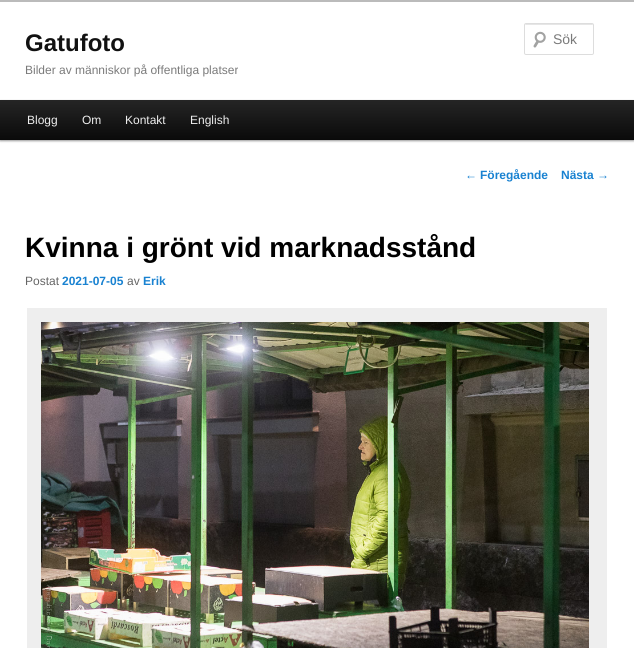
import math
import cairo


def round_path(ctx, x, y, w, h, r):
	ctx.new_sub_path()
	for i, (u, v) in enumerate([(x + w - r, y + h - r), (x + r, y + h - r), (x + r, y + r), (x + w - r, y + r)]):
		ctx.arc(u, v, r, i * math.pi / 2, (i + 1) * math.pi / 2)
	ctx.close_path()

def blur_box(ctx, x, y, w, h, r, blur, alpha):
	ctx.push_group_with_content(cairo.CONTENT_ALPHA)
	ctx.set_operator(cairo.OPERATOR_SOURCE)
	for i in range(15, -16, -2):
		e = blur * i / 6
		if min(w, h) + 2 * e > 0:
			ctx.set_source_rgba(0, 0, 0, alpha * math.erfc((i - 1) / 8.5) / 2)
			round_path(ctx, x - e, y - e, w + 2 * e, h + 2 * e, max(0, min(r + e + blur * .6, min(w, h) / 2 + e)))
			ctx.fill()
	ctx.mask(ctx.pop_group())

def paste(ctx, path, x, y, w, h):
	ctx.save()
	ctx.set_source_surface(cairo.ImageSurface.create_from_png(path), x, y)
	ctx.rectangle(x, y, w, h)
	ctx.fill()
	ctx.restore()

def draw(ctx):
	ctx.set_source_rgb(1, 1, 1)
	ctx.paint()
	ctx.set_source_rgb(0.733, 0.733, 0.733)
	ctx.rectangle(0, 0, 634, 2)
	ctx.fill()
	ctx.select_font_face('Liberation Sans', cairo.FONT_SLANT_NORMAL, cairo.FONT_WEIGHT_BOLD)
	ctx.set_font_size(24)
	ctx.set_source_rgb(0.067, 0.067, 0.067)
	ctx.move_to(25, 51)
	ctx.show_text('Gatufoto')
	ctx.select_font_face('Liberation Sans')
	ctx.set_font_size(12)
	ctx.set_source_rgb(0.478, 0.478, 0.478)
	ctx.move_to(25, 74)
	ctx.show_text('Bilder av människor på offentliga platser')
	paste(ctx, 'media/1.png', 533, 31, 13, 17)
	ctx.set_source_rgb(0.902, 0.902, 0.902)
	ctx.new_path()
	ctx.move_to(526, 25)
	ctx.line_to(592, 25)
	ctx.curve_to(593, 25, 593, 25, 593, 26)
	ctx.curve_to(593, 25, 593, 24, 592, 24)
	ctx.line_to(537, 24)
	ctx.curve_to(533, 24, 525, 21, 525, 26)
	ctx.curve_to(525, 25, 525, 25, 526, 25)
	ctx.close_path()
	ctx.fill()
	round_path(ctx, 524.5, 23.5, 69, 31, 1.5)
	ctx.set_source_rgb(0.867, 0.867, 0.867)
	ctx.set_line_width(1)
	ctx.stroke()
	ctx.set_font_size(14)
	ctx.set_source_rgb(0.478, 0.478, 0.478)
	ctx.move_to(553, 44)
	ctx.show_text('Sök')
	ctx.set_source_rgb(0, 0, 0)
	blur_box(ctx, 0, 101, 634, 40, 0, 1, 0.4)
	gradient = cairo.LinearGradient(317, 100, 317, 140)
	gradient.add_color_stop_rgba(0, 0.145, 0.145, 0.145, 1)
	gradient.add_color_stop_rgba(1, 0.039, 0.039, 0.039, 1)
	ctx.set_source(gradient)
	ctx.rectangle(0, 100, 634, 40)
	ctx.fill()
	ctx.set_font_size(12)
	ctx.set_source_rgb(0.933, 0.933, 0.933)
	for x, y, s in [
		(27, 124, 'Blogg'),
		(82, 124, 'Om'),
		(125, 124, 'Kontakt'),
		(190, 124, 'English'),
	]:
		ctx.move_to(x, y)
		ctx.show_text(s)
	ctx.set_source_rgb(0.098, 0.51, 0.82)
	ctx.move_to(465, 179)
	ctx.show_text('←')
	ctx.select_font_face('Liberation Sans', cairo.FONT_SLANT_NORMAL, cairo.FONT_WEIGHT_BOLD)
	ctx.move_to(480, 179)
	ctx.show_text('Föregående')
	ctx.move_to(561, 179)
	ctx.show_text('Nästa')
	ctx.select_font_face('Liberation Sans')
	ctx.move_to(597, 179)
	ctx.show_text('→')
	ctx.select_font_face('Liberation Sans', cairo.FONT_SLANT_NORMAL, cairo.FONT_WEIGHT_BOLD)
	ctx.set_font_size(28)
	ctx.set_source_rgb(0, 0, 0)
	ctx.move_to(25, 257)
	ctx.show_text('Kvinna i grönt vid marknadsstånd')
	ctx.select_font_face('Liberation Sans')
	ctx.set_font_size(12)
	ctx.set_source_rgb(0.4, 0.4, 0.4)
	ctx.move_to(25, 285)
	ctx.show_text('Postat')
	ctx.select_font_face('Liberation Sans', cairo.FONT_SLANT_NORMAL, cairo.FONT_WEIGHT_BOLD)
	ctx.set_source_rgb(0.098, 0.51, 0.82)
	ctx.move_to(62, 285)
	ctx.show_text('2021-07-05')
	ctx.select_font_face('Liberation Sans')
	ctx.set_source_rgb(0.4, 0.4, 0.4)
	ctx.move_to(127, 285)
	ctx.show_text('av')
	ctx.select_font_face('Liberation Sans', cairo.FONT_SLANT_NORMAL, cairo.FONT_WEIGHT_BOLD)
	ctx.set_source_rgb(0.098, 0.51, 0.82)
	ctx.move_to(143, 285)
	ctx.show_text('Erik')
	ctx.set_source_rgb(0.933, 0.933, 0.933)
	ctx.rectangle(27, 308, 580, 340)
	ctx.fill()
	paste(ctx, 'media/2.png', 41, 322, 548, 326)


surface = cairo.ImageSurface(cairo.FORMAT_RGB24, 634, 648)
ctx = cairo.Context(surface)
options = cairo.FontOptions()
options.set_hint_metrics(cairo.HINT_METRICS_OFF)
options.set_hint_style(cairo.HINT_STYLE_NONE)
ctx.set_font_options(options)
ctx.set_miter_limit(4)
draw(ctx)
surface.write_to_png('image.png')
